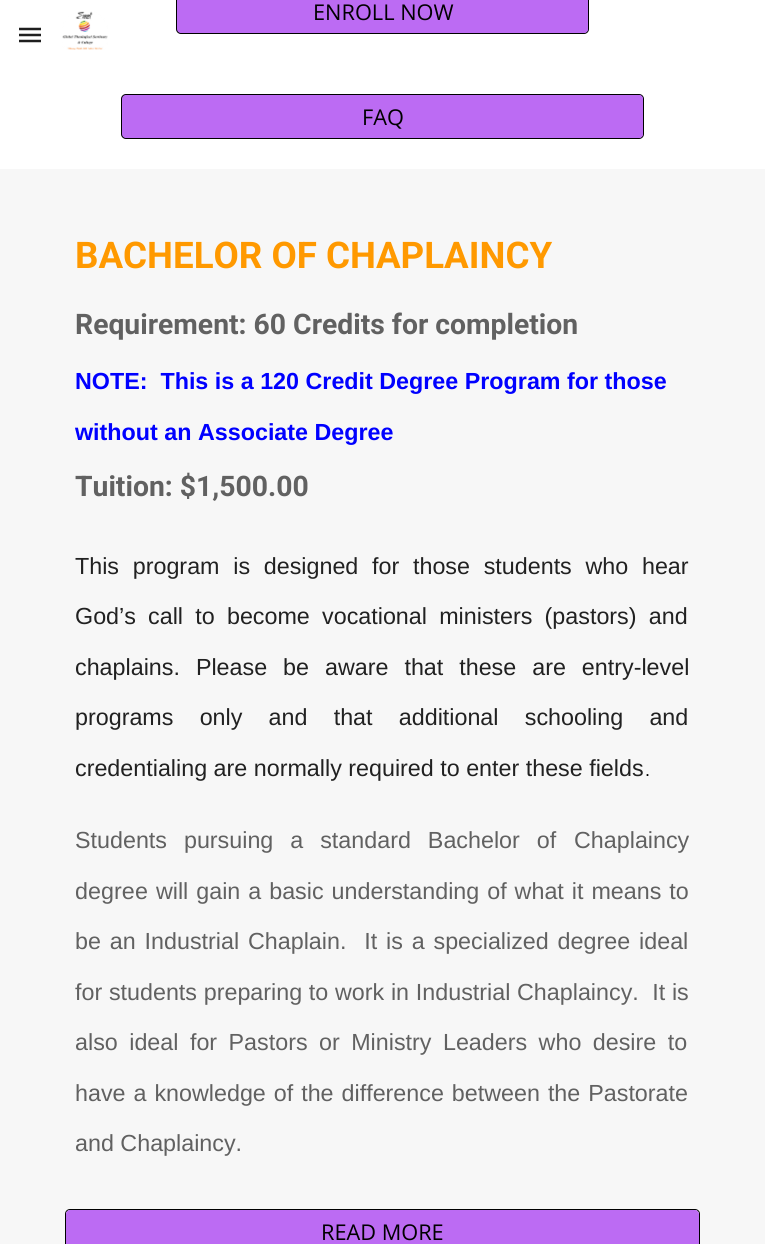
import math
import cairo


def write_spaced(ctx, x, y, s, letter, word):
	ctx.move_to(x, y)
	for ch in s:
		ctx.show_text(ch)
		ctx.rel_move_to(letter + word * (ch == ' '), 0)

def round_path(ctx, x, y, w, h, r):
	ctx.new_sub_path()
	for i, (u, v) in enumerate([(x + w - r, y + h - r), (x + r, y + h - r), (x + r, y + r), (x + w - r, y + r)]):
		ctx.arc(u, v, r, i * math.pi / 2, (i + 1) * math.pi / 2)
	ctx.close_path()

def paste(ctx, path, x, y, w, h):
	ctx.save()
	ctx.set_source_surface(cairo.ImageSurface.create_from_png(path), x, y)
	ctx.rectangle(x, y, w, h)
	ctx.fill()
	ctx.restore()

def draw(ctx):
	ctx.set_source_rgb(1, 1, 1)
	ctx.paint()
	ctx.new_path()
	ctx.move_to(19, 29)
	ctx.line_to(41, 29)
	ctx.move_to(19, 35)
	ctx.line_to(41, 35)
	ctx.move_to(19, 41)
	ctx.line_to(41, 41)
	ctx.set_source_rgb(0.122, 0.122, 0.122)
	ctx.set_line_width(2.5)
	ctx.stroke()
	paste(ctx, 'media/1.png', 62, 11, 46, 39)
	ctx.set_source_rgb(0.737, 0.42, 0.953)
	round_path(ctx, 176.5, -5.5, 412, 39, 4.5)
	ctx.fill_preserve()
	ctx.set_source_rgb(0, 0, 0)
	ctx.set_line_width(1)
	ctx.stroke()
	ctx.set_source_rgb(0.737, 0.42, 0.953)
	round_path(ctx, 178, -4, 410, 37, 4)
	ctx.fill()
	ctx.select_font_face('Open Sans')
	ctx.set_font_size(21.75)
	ctx.set_source_rgb(0, 0, 0)
	ctx.move_to(313, 20)
	ctx.show_text('ENROLL NOW')
	ctx.set_source_rgb(0.737, 0.42, 0.953)
	round_path(ctx, 121.5, 94.5, 522, 44, 4.5)
	ctx.fill_preserve()
	ctx.set_source_rgb(0, 0, 0)
	ctx.stroke()
	ctx.set_source_rgb(0.737, 0.42, 0.953)
	round_path(ctx, 123, 95, 520, 43, 4)
	ctx.fill()
	ctx.set_source_rgb(0, 0, 0)
	ctx.move_to(362, 125)
	ctx.show_text('FAQ')
	ctx.set_source_rgb(0.965, 0.965, 0.965)
	ctx.rectangle(0, 169, 765, 1075)
	ctx.fill()
	ctx.select_font_face('Roboto', cairo.FONT_SLANT_NORMAL, cairo.FONT_WEIGHT_BOLD)
	ctx.set_font_size(36.7)
	ctx.set_source_rgb(1, 0.6, 0)
	ctx.move_to(75, 268)
	ctx.show_text('BACHELOR OF CHAPLAINCY')
	ctx.set_font_size(28.3)
	ctx.set_source_rgb(0.38, 0.38, 0.38)
	ctx.move_to(75, 334)
	ctx.show_text('Requirement: 60 Credits for completion')
	ctx.select_font_face('Liberation Sans', cairo.FONT_SLANT_NORMAL, cairo.FONT_WEIGHT_BOLD)
	ctx.set_font_size(23.3)
	ctx.set_source_rgb(0, 0, 1)
	ctx.move_to(75, 389)
	ctx.show_text('NOTE:  This is a 120 Credit Degree Program for those')
	ctx.move_to(75, 440)
	ctx.show_text('without an Associate Degree')
	ctx.select_font_face('Roboto', cairo.FONT_SLANT_NORMAL, cairo.FONT_WEIGHT_BOLD)
	ctx.set_font_size(28.3)
	ctx.set_source_rgb(0.38, 0.38, 0.38)
	ctx.move_to(75, 496)
	ctx.show_text('Tuition: $1,500.00')
	ctx.select_font_face('Liberation Sans')
	ctx.set_font_size(23.3)
	ctx.set_source_rgb(0.129, 0.129, 0.129)
	write_spaced(ctx, 75, 574, 'This program is designed for those students who hear', 0, 7.25)
	write_spaced(ctx, 75, 624, 'God’s call to become vocational ministers (pastors) and', 0, 5.75)
	write_spaced(ctx, 75, 675, 'chaplains. Please be aware that these are entry-level', 0, 9.5)
	write_spaced(ctx, 75, 725, 'programs only and that additional schooling and', 0, 19.75)
	ctx.move_to(75, 776)
	ctx.show_text('credentialing are normally required to enter these fields')
	ctx.set_font_size(18)
	ctx.set_source_rgb(0, 0, 0)
	ctx.move_to(645, 776)
	ctx.show_text('.')
	ctx.set_font_size(23.3)
	ctx.set_source_rgb(0.38, 0.38, 0.38)
	write_spaced(ctx, 75, 848, 'Students pursuing a standard Bachelor of', 0, 10.5)
	ctx.move_to(574, 848)
	ctx.show_text('Chaplaincy')
	ctx.move_to(75, 899)
	ctx.show_text('degre')
	write_spaced(ctx, 135, 899, 'e will gain a basic understanding of what it means to', 0, 1.5)
	write_spaced(ctx, 75, 949, 'be an Industrial Chaplain.  It is a specialized degree ideal', 0, 2.4)
	write_spaced(ctx, 75, 1000, 'for students preparing to work in Industrial Chaplaincy.  It is', 0, 0.25)
	write_spaced(ctx, 75, 1050, 'also ideal for Pastors or Ministry Leaders who desire to', 0, 5)
	write_spaced(ctx, 75, 1101, 'have a knowledge of the difference between the Pastorate', 0, 1.5)
	ctx.move_to(75, 1151)
	ctx.show_text('and Chaplaincy.')
	round_path(ctx, 65.5, 1209.5, 634, 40, 4.5)
	ctx.set_source_rgb(0, 0, 0)
	ctx.stroke()
	ctx.set_source_rgb(0.737, 0.42, 0.953)
	round_path(ctx, 66, 1210, 633, 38, 4)
	ctx.fill()
	ctx.select_font_face('Open Sans')
	ctx.set_font_size(21.75)
	ctx.set_source_rgb(0, 0, 0)
	ctx.move_to(321, 1240)
	ctx.show_text('READ MORE')


surface = cairo.ImageSurface(cairo.FORMAT_RGB24, 765, 1244)
ctx = cairo.Context(surface)
options = cairo.FontOptions()
options.set_hint_metrics(cairo.HINT_METRICS_OFF)
options.set_hint_style(cairo.HINT_STYLE_NONE)
ctx.set_font_options(options)
ctx.set_miter_limit(4)
draw(ctx)
surface.write_to_png('image.png')
